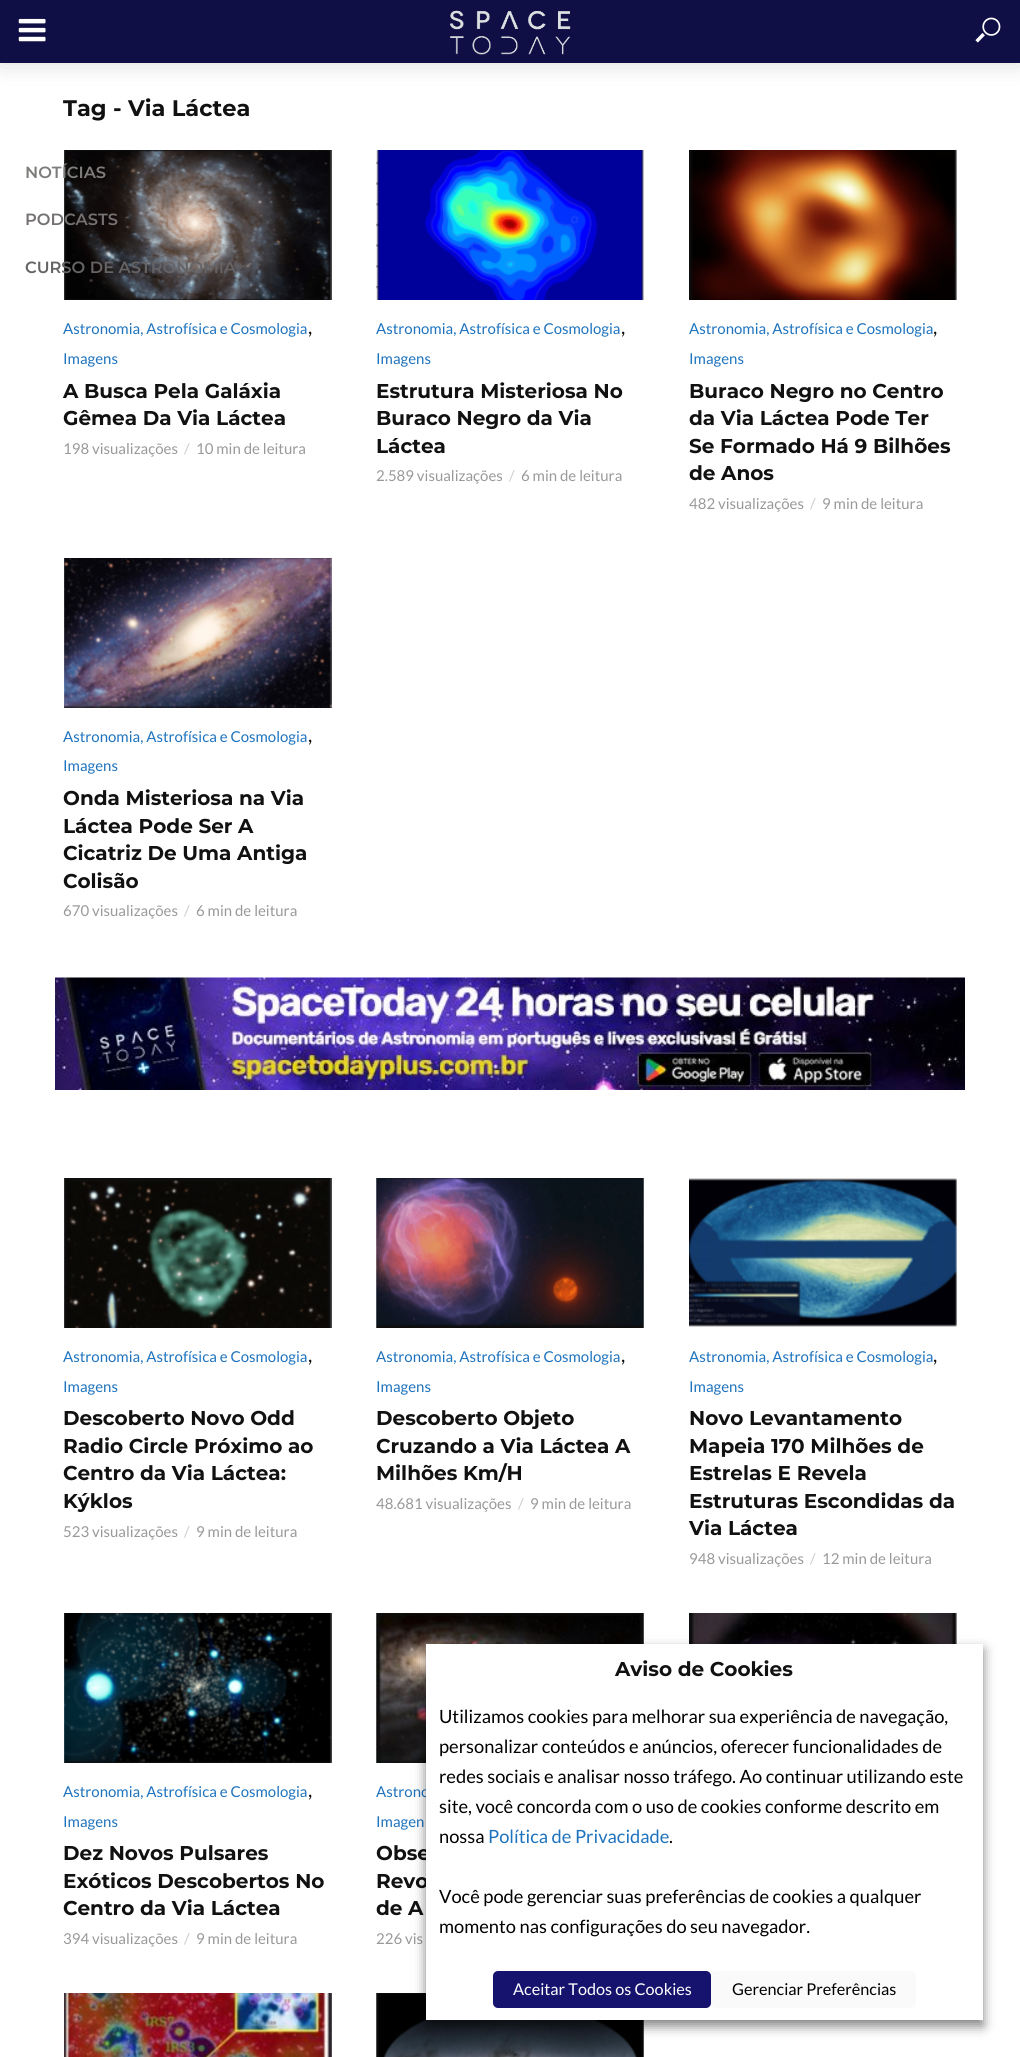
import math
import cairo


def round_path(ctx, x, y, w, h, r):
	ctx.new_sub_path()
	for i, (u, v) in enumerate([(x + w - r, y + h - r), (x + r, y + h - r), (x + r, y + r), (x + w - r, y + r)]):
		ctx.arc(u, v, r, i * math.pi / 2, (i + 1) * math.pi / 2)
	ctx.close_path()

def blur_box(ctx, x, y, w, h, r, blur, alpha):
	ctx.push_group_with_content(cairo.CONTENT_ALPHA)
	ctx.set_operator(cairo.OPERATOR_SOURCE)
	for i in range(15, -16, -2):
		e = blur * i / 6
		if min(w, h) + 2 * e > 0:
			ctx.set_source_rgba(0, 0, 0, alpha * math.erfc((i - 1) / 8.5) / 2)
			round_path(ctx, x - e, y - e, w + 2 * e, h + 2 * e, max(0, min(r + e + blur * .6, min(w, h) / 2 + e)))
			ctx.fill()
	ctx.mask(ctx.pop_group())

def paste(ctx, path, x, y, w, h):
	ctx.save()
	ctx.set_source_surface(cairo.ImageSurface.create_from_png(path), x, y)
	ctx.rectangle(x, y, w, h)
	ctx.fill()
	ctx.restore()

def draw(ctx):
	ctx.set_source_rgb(1, 1, 1)
	ctx.paint()
	ctx.select_font_face('Montserrat', cairo.FONT_SLANT_NORMAL, cairo.FONT_WEIGHT_BOLD)
	ctx.set_font_size(22.5)
	ctx.set_source_rgb(0.067, 0.067, 0.067)
	ctx.move_to(63, 116)
	ctx.show_text('Tag - Via Láctea')
	paste(ctx, 'media/1.png', 64, 150, 268, 150)
	ctx.select_font_face('Lato')
	ctx.set_font_size(15)
	ctx.set_source_rgb(0.118, 0.451, 0.745)
	ctx.move_to(63, 334)
	ctx.show_text('Astronomia, Astrofísica e Cosmologia')
	ctx.set_font_size(20)
	ctx.set_source_rgb(0.067, 0.067, 0.067)
	ctx.move_to(308, 334)
	ctx.show_text(',')
	ctx.set_font_size(15)
	ctx.set_source_rgb(0.118, 0.451, 0.745)
	ctx.move_to(63, 364)
	ctx.show_text('Imagens')
	ctx.select_font_face('Montserrat', cairo.FONT_SLANT_NORMAL, cairo.FONT_WEIGHT_BOLD)
	ctx.set_font_size(20)
	ctx.set_source_rgb(0.067, 0.067, 0.067)
	ctx.move_to(63, 398)
	ctx.show_text('A Busca Pela Galáxia')
	ctx.move_to(63, 425)
	ctx.show_text('Gêmea Da Via Láctea')
	ctx.select_font_face('Lato')
	ctx.set_font_size(15)
	ctx.set_source_rgb(0.6, 0.6, 0.6)
	ctx.move_to(63, 454)
	ctx.show_text('198 visualizações')
	ctx.set_source_rgb(0.8, 0.8, 0.8)
	ctx.move_to(184, 454)
	ctx.show_text('/')
	ctx.set_source_rgb(0.6, 0.6, 0.6)
	ctx.move_to(196, 454)
	ctx.show_text('10 min de leitura')
	paste(ctx, 'media/2.png', 376, 150, 268, 150)
	ctx.set_source_rgb(0.118, 0.451, 0.745)
	ctx.move_to(376, 334)
	ctx.show_text('Astronomia, Astrofísica e Cosmologia')
	ctx.set_font_size(20)
	ctx.set_source_rgb(0.067, 0.067, 0.067)
	ctx.move_to(621, 334)
	ctx.show_text(',')
	ctx.set_font_size(15)
	ctx.set_source_rgb(0.118, 0.451, 0.745)
	ctx.move_to(376, 364)
	ctx.show_text('Imagens')
	ctx.select_font_face('Montserrat', cairo.FONT_SLANT_NORMAL, cairo.FONT_WEIGHT_BOLD)
	ctx.set_font_size(20)
	ctx.set_source_rgb(0.067, 0.067, 0.067)
	for x, y, s in [
		(376, 398, 'Estrutura Misteriosa No'),
		(376, 425, 'Buraco Negro da Via'),
		(376, 453, 'Láctea'),
	]:
		ctx.move_to(x, y)
		ctx.show_text(s)
	ctx.select_font_face('Lato')
	ctx.set_font_size(15)
	ctx.set_source_rgb(0.6, 0.6, 0.6)
	ctx.move_to(376, 481)
	ctx.show_text('2.589 visualizações')
	ctx.set_source_rgb(0.8, 0.8, 0.8)
	ctx.move_to(509, 481)
	ctx.show_text('/')
	ctx.set_source_rgb(0.6, 0.6, 0.6)
	ctx.move_to(521, 481)
	ctx.show_text('6 min de leitura')
	paste(ctx, 'media/3.png', 689, 150, 268, 150)
	ctx.set_source_rgb(0.118, 0.451, 0.745)
	ctx.move_to(689, 334)
	ctx.show_text('Astronomia, Astrofísica e Cosmologia')
	ctx.set_font_size(20)
	ctx.set_source_rgb(0.067, 0.067, 0.067)
	ctx.move_to(933, 334)
	ctx.show_text(',')
	ctx.set_font_size(15)
	ctx.set_source_rgb(0.118, 0.451, 0.745)
	ctx.move_to(689, 364)
	ctx.show_text('Imagens')
	ctx.select_font_face('Montserrat', cairo.FONT_SLANT_NORMAL, cairo.FONT_WEIGHT_BOLD)
	ctx.set_font_size(20)
	ctx.set_source_rgb(0.067, 0.067, 0.067)
	for x, y, s in [
		(689, 398, 'Buraco Negro no Centro'),
		(689, 425, 'da Via Láctea Pode Ter'),
		(689, 453, 'Se Formado Há 9 Bilhões'),
		(689, 480, 'de Anos'),
	]:
		ctx.move_to(x, y)
		ctx.show_text(s)
	ctx.select_font_face('Lato')
	ctx.set_font_size(15)
	ctx.set_source_rgb(0.6, 0.6, 0.6)
	ctx.move_to(689, 509)
	ctx.show_text('482 visualizações')
	ctx.set_source_rgb(0.8, 0.8, 0.8)
	ctx.move_to(810, 509)
	ctx.show_text('/')
	ctx.set_source_rgb(0.6, 0.6, 0.6)
	ctx.move_to(822, 509)
	ctx.show_text('9 min de leitura')
	paste(ctx, 'media/4.png', 64, 558, 268, 150)
	ctx.set_source_rgb(0.118, 0.451, 0.745)
	ctx.move_to(63, 742)
	ctx.show_text('Astronomia, Astrofísica e Cosmologia')
	ctx.set_font_size(20)
	ctx.set_source_rgb(0.067, 0.067, 0.067)
	ctx.move_to(308, 742)
	ctx.show_text(',')
	ctx.set_font_size(15)
	ctx.set_source_rgb(0.118, 0.451, 0.745)
	ctx.move_to(63, 771)
	ctx.show_text('Imagens')
	ctx.select_font_face('Montserrat', cairo.FONT_SLANT_NORMAL, cairo.FONT_WEIGHT_BOLD)
	ctx.set_font_size(20)
	ctx.set_source_rgb(0.067, 0.067, 0.067)
	for x, y, s in [
		(63, 805, 'Onda Misteriosa na Via'),
		(63, 833, 'Láctea Pode Ser A'),
		(63, 860, 'Cicatriz De Uma Antiga'),
		(63, 888, 'Colisão'),
	]:
		ctx.move_to(x, y)
		ctx.show_text(s)
	ctx.select_font_face('Lato')
	ctx.set_font_size(15)
	ctx.set_source_rgb(0.6, 0.6, 0.6)
	ctx.move_to(63, 916)
	ctx.show_text('670 visualizações')
	ctx.set_source_rgb(0.8, 0.8, 0.8)
	ctx.move_to(184, 916)
	ctx.show_text('/')
	ctx.set_source_rgb(0.6, 0.6, 0.6)
	ctx.move_to(196, 916)
	ctx.show_text('6 min de leitura')
	paste(ctx, 'media/5.png', 55, 977, 910, 113)
	paste(ctx, 'media/6.png', 64, 1178, 268, 150)
	ctx.set_source_rgb(0.118, 0.451, 0.745)
	ctx.move_to(63, 1362)
	ctx.show_text('Astronomia, Astrofísica e Cosmologia')
	ctx.set_font_size(20)
	ctx.set_source_rgb(0.067, 0.067, 0.067)
	ctx.move_to(308, 1362)
	ctx.show_text(',')
	ctx.set_font_size(15)
	ctx.set_source_rgb(0.118, 0.451, 0.745)
	ctx.move_to(63, 1392)
	ctx.show_text('Imagens')
	ctx.select_font_face('Montserrat', cairo.FONT_SLANT_NORMAL, cairo.FONT_WEIGHT_BOLD)
	ctx.set_font_size(20)
	ctx.set_source_rgb(0.067, 0.067, 0.067)
	for x, y, s in [
		(63, 1425, 'Descoberto Novo Odd'),
		(63, 1453, 'Radio Circle Próximo ao'),
		(63, 1480, 'Centro da Via Láctea:'),
		(63, 1508, 'Kýklos'),
	]:
		ctx.move_to(x, y)
		ctx.show_text(s)
	ctx.select_font_face('Lato')
	ctx.set_font_size(15)
	ctx.set_source_rgb(0.6, 0.6, 0.6)
	ctx.move_to(63, 1537)
	ctx.show_text('523 visualizações')
	ctx.set_source_rgb(0.8, 0.8, 0.8)
	ctx.move_to(184, 1537)
	ctx.show_text('/')
	ctx.set_source_rgb(0.6, 0.6, 0.6)
	ctx.move_to(196, 1537)
	ctx.show_text('9 min de leitura')
	paste(ctx, 'media/7.png', 376, 1178, 268, 150)
	ctx.set_source_rgb(0.118, 0.451, 0.745)
	ctx.move_to(376, 1362)
	ctx.show_text('Astronomia, Astrofísica e Cosmologia')
	ctx.set_font_size(20)
	ctx.set_source_rgb(0.067, 0.067, 0.067)
	ctx.move_to(621, 1362)
	ctx.show_text(',')
	ctx.set_font_size(15)
	ctx.set_source_rgb(0.118, 0.451, 0.745)
	ctx.move_to(376, 1392)
	ctx.show_text('Imagens')
	ctx.select_font_face('Montserrat', cairo.FONT_SLANT_NORMAL, cairo.FONT_WEIGHT_BOLD)
	ctx.set_font_size(20)
	ctx.set_source_rgb(0.067, 0.067, 0.067)
	for x, y, s in [
		(376, 1425, 'Descoberto Objeto'),
		(376, 1453, 'Cruzando a Via Láctea A'),
		(376, 1480, 'Milhões Km/H'),
	]:
		ctx.move_to(x, y)
		ctx.show_text(s)
	ctx.select_font_face('Lato')
	ctx.set_font_size(15)
	ctx.set_source_rgb(0.6, 0.6, 0.6)
	ctx.move_to(376, 1509)
	ctx.show_text('48.681 visualizações')
	ctx.set_source_rgb(0.8, 0.8, 0.8)
	ctx.move_to(518, 1509)
	ctx.show_text('/')
	ctx.set_source_rgb(0.6, 0.6, 0.6)
	ctx.move_to(530, 1509)
	ctx.show_text('9 min de leitura')
	paste(ctx, 'media/8.png', 689, 1178, 268, 149)
	ctx.set_source_rgb(0.118, 0.451, 0.745)
	ctx.move_to(689, 1362)
	ctx.show_text('Astronomia, Astrofísica e Cosmologia')
	ctx.set_font_size(20)
	ctx.set_source_rgb(0.067, 0.067, 0.067)
	ctx.move_to(933, 1362)
	ctx.show_text(',')
	ctx.set_font_size(15)
	ctx.set_source_rgb(0.118, 0.451, 0.745)
	ctx.move_to(689, 1392)
	ctx.show_text('Imagens')
	ctx.select_font_face('Montserrat', cairo.FONT_SLANT_NORMAL, cairo.FONT_WEIGHT_BOLD)
	ctx.set_font_size(20)
	ctx.set_source_rgb(0.067, 0.067, 0.067)
	for x, y, s in [
		(689, 1425, 'Novo Levantamento'),
		(689, 1453, 'Mapeia 170 Milhões de'),
		(689, 1480, 'Estrelas E Revela'),
		(689, 1508, 'Estruturas Escondidas da'),
		(689, 1535, 'Via Láctea'),
	]:
		ctx.move_to(x, y)
		ctx.show_text(s)
	ctx.select_font_face('Lato')
	ctx.set_font_size(15)
	ctx.set_source_rgb(0.6, 0.6, 0.6)
	ctx.move_to(689, 1564)
	ctx.show_text('948 visualizações')
	ctx.set_source_rgb(0.8, 0.8, 0.8)
	ctx.move_to(810, 1564)
	ctx.show_text('/')
	ctx.set_source_rgb(0.6, 0.6, 0.6)
	ctx.move_to(822, 1564)
	ctx.show_text('12 min de leitura')
	paste(ctx, 'media/9.png', 689, 1613, 268, 31)
	paste(ctx, 'media/10.png', 64, 1613, 268, 150)
	ctx.set_source_rgb(0.118, 0.451, 0.745)
	ctx.move_to(63, 1797)
	ctx.show_text('Astronomia, Astrofísica e Cosmologia')
	ctx.set_font_size(20)
	ctx.set_source_rgb(0.067, 0.067, 0.067)
	ctx.move_to(308, 1797)
	ctx.show_text(',')
	ctx.set_font_size(15)
	ctx.set_source_rgb(0.118, 0.451, 0.745)
	ctx.move_to(63, 1827)
	ctx.show_text('Imagens')
	ctx.select_font_face('Montserrat', cairo.FONT_SLANT_NORMAL, cairo.FONT_WEIGHT_BOLD)
	ctx.set_font_size(20)
	ctx.set_source_rgb(0.067, 0.067, 0.067)
	for x, y, s in [
		(63, 1860, 'Dez Novos Pulsares'),
		(63, 1888, 'Exóticos Descobertos No'),
		(63, 1915, 'Centro da Via Láctea'),
	]:
		ctx.move_to(x, y)
		ctx.show_text(s)
	ctx.select_font_face('Lato')
	ctx.set_font_size(15)
	ctx.set_source_rgb(0.6, 0.6, 0.6)
	ctx.move_to(63, 1944)
	ctx.show_text('394 visualizações')
	ctx.set_source_rgb(0.8, 0.8, 0.8)
	ctx.move_to(184, 1944)
	ctx.show_text('/')
	ctx.set_source_rgb(0.6, 0.6, 0.6)
	ctx.move_to(196, 1944)
	ctx.show_text('9 min de leitura')
	paste(ctx, 'media/11.png', 376, 1613, 268, 150)
	ctx.set_source_rgb(0.118, 0.451, 0.745)
	ctx.move_to(376, 1797)
	ctx.show_text('Astrono')
	ctx.move_to(376, 1827)
	ctx.show_text('Imagen')
	ctx.select_font_face('Montserrat', cairo.FONT_SLANT_NORMAL, cairo.FONT_WEIGHT_BOLD)
	ctx.set_font_size(20)
	ctx.set_source_rgb(0.067, 0.067, 0.067)
	for x, y, s in [
		(376, 1860, 'Obse'),
		(376, 1888, 'Revo'),
		(376, 1915, 'de A'),
	]:
		ctx.move_to(x, y)
		ctx.show_text(s)
	ctx.select_font_face('Lato')
	ctx.set_font_size(15)
	ctx.set_source_rgb(0.6, 0.6, 0.6)
	ctx.move_to(376, 1944)
	ctx.show_text('226 vis')
	paste(ctx, 'media/12.png', 64, 1993, 268, 64)
	paste(ctx, 'media/13.png', 376, 1993, 268, 64)
	ctx.set_source_rgb(0, 0, 0)
	blur_box(ctx, 0, 0, 1020, 63, 0, 12.5, 0.15)
	ctx.set_source_rgb(0.059, 0.055, 0.271)
	ctx.rectangle(0, 0, 1020, 63)
	ctx.fill()
	paste(ctx, 'media/14.png', 449, 10, 122, 45)
	paste(ctx, 'media/15.png', 975, 17, 26, 26)
	paste(ctx, 'media/16.png', 18, 18, 28, 24)
	ctx.select_font_face('Montserrat SemiBold')
	ctx.set_font_size(16.25)
	ctx.set_source_rgb(0.494, 0.49, 0.486)
	ctx.move_to(25, 178)
	ctx.show_text('NOTÍCIAS')
	ctx.set_source_rgb(0.455, 0.443, 0.443)
	ctx.move_to(25, 225)
	ctx.show_text('PODCASTS')
	ctx.set_source_rgb(0.396, 0.388, 0.396)
	ctx.move_to(25, 273)
	ctx.show_text('CURSO DE ASTRONOMIA')
	ctx.set_source_rgb(0, 0, 0)
	blur_box(ctx, 426, 1650, 557, 376, 0, 6, 0.5)
	ctx.set_source_rgb(1, 1, 1)
	ctx.rectangle(426, 1644, 557, 376)
	ctx.fill()
	ctx.select_font_face('Montserrat', cairo.FONT_SLANT_NORMAL, cairo.FONT_WEIGHT_BOLD)
	ctx.set_font_size(20)
	ctx.set_source_rgb(0.067, 0.067, 0.067)
	ctx.move_to(615, 1676)
	ctx.show_text('Aviso de Cookies')
	ctx.select_font_face('Lato')
	ctx.set_font_size(18.3)
	ctx.set_source_rgb(0, 0, 0)
	for x, y, s in [
		(439, 1723, 'Utilizamos cookies para melhorar sua experiência de navegação,'),
		(439, 1753, 'personalizar conteúdos e anúncios, oferecer funcionalidades de'),
		(439, 1783, 'redes sociais e analisar nosso tráfego. Ao continuar utilizando este'),
		(439, 1813, 'site, você concorda com o uso de cookies conforme descrito em'),
		(439, 1843, 'nossa'),
	]:
		ctx.move_to(x, y)
		ctx.show_text(s)
	ctx.set_source_rgb(0.118, 0.451, 0.745)
	ctx.move_to(488, 1843)
	ctx.show_text('Política de Privacidade')
	ctx.set_source_rgb(0, 0, 0)
	for x, y, s in [
		(669, 1843, '.'),
		(439, 1903, 'Você pode gerenciar suas preferências de cookies a qualquer'),
		(439, 1933, 'momento nas configurações do seu navegador.'),
	]:
		ctx.move_to(x, y)
		ctx.show_text(s)
	ctx.set_source_rgb(0.086, 0.078, 0.435)
	round_path(ctx, 493, 1971, 218, 37, 5)
	ctx.fill()
	ctx.set_font_size(16.25)
	ctx.set_source_rgb(1, 1, 1)
	ctx.move_to(513, 1995)
	ctx.show_text('Aceitar Todos os Cookies')
	ctx.set_source_rgb(0.98, 0.98, 0.98)
	round_path(ctx, 711, 1971, 205, 37, 5)
	ctx.fill()
	ctx.set_source_rgb(0, 0, 0)
	ctx.move_to(732, 1995)
	ctx.show_text('Gerenciar Preferências')


surface = cairo.ImageSurface(cairo.FORMAT_RGB24, 1020, 2057)
ctx = cairo.Context(surface)
options = cairo.FontOptions()
options.set_hint_metrics(cairo.HINT_METRICS_OFF)
options.set_hint_style(cairo.HINT_STYLE_NONE)
ctx.set_font_options(options)
ctx.set_miter_limit(4)
draw(ctx)
surface.write_to_png('image.png')
